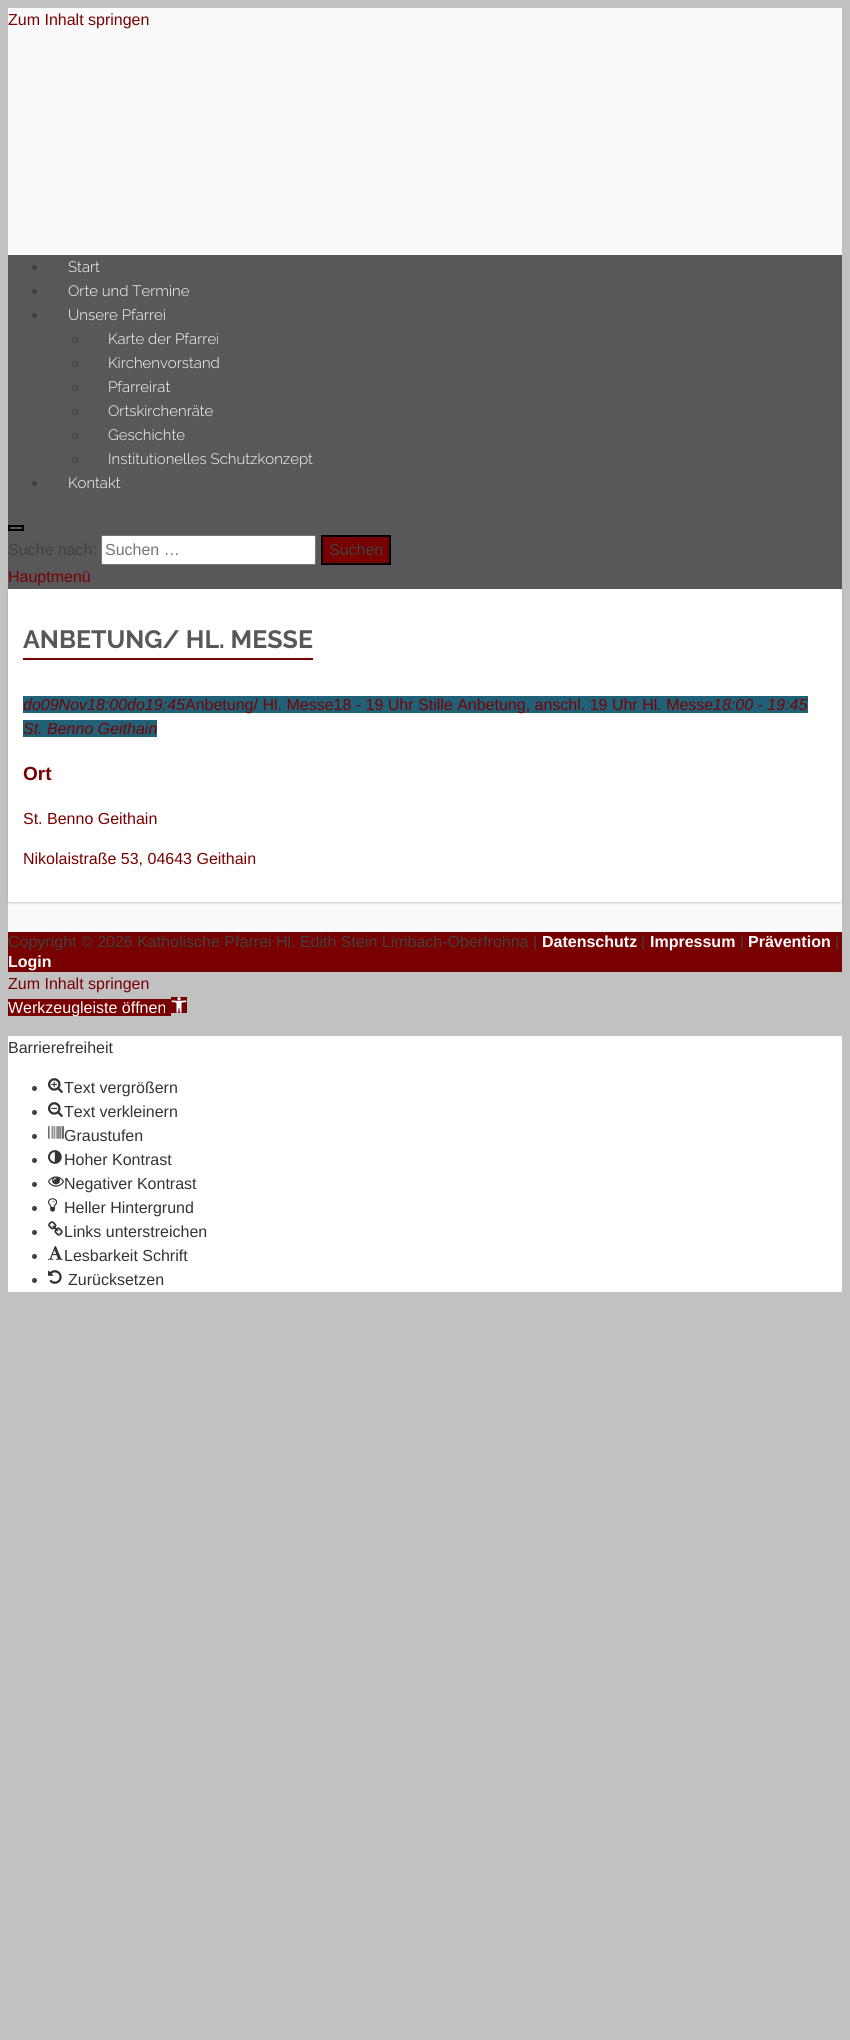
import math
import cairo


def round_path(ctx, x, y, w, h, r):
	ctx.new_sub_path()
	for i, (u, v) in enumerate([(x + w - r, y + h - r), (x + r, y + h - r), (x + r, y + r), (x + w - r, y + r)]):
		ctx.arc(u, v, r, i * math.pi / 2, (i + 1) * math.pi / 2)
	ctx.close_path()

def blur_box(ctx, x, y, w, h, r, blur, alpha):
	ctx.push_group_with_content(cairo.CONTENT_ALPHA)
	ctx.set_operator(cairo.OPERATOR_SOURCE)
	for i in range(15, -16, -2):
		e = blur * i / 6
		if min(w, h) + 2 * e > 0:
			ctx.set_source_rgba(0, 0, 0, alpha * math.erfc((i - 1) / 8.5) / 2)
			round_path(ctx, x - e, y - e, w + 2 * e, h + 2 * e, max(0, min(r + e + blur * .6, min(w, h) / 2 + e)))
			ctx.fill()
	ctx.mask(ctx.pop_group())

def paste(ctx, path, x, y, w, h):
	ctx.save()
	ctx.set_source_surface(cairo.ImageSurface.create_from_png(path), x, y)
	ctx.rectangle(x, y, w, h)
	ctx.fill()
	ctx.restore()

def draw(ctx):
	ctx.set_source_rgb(0.757, 0.757, 0.757)
	ctx.paint()
	ctx.set_source_rgb(0.98, 0.98, 0.98)
	ctx.rectangle(8, 8, 834, 924)
	ctx.fill()
	ctx.select_font_face('Liberation Sans')
	ctx.set_font_size(16)
	ctx.set_source_rgb(0.471, 0, 0)
	ctx.move_to(8, 25)
	ctx.show_text('Zum Inhalt springen')
	ctx.set_source_rgb(0.345, 0.345, 0.353)
	ctx.rectangle(8, 255, 834, 334)
	ctx.fill()
	ctx.set_source_rgb(0.251, 0.251, 0.251)
	ctx.arc(34.5, 267.5, 2.5, 0, 2 * math.pi)
	ctx.fill()
	ctx.select_font_face('Raleway Light')
	ctx.set_font_size(15)
	ctx.set_source_rgb(1, 1, 1)
	ctx.move_to(68, 272)
	ctx.show_text('Start')
	ctx.set_source_rgb(0.251, 0.251, 0.251)
	ctx.new_path()
	ctx.arc(34.5, 291.5, 2.5, 0, 2 * math.pi)
	ctx.fill()
	ctx.set_source_rgb(1, 1, 1)
	ctx.move_to(68, 296)
	ctx.show_text('Orte und Termine')
	ctx.set_source_rgb(0.251, 0.251, 0.251)
	ctx.new_path()
	ctx.arc(34.5, 315.5, 2.5, 0, 2 * math.pi)
	ctx.fill()
	ctx.set_source_rgb(1, 1, 1)
	ctx.move_to(68, 320)
	ctx.show_text('Unsere Pfarrei')
	ctx.new_path()
	ctx.arc(75, 340, 2.5, 0, 2 * math.pi)
	ctx.set_source_rgb(0.251, 0.251, 0.251)
	ctx.set_line_width(1)
	ctx.stroke()
	ctx.set_source_rgb(1, 1, 1)
	ctx.move_to(108, 344)
	ctx.show_text('Karte der Pfarrei')
	ctx.new_path()
	ctx.arc(75, 364, 2.5, 0, 2 * math.pi)
	ctx.set_source_rgb(0.251, 0.251, 0.251)
	ctx.stroke()
	ctx.set_source_rgb(1, 1, 1)
	ctx.move_to(108, 368)
	ctx.show_text('Kirchenvorstand')
	ctx.new_path()
	ctx.arc(75, 388, 2.5, 0, 2 * math.pi)
	ctx.set_source_rgb(0.251, 0.251, 0.251)
	ctx.stroke()
	ctx.set_source_rgb(1, 1, 1)
	ctx.move_to(108, 392)
	ctx.show_text('Pfarreirat')
	ctx.new_path()
	ctx.arc(75, 412, 2.5, 0, 2 * math.pi)
	ctx.set_source_rgb(0.251, 0.251, 0.251)
	ctx.stroke()
	ctx.set_source_rgb(1, 1, 1)
	ctx.move_to(108, 416)
	ctx.show_text('Ortskirchenräte')
	ctx.new_path()
	ctx.arc(75, 436, 2.5, 0, 2 * math.pi)
	ctx.set_source_rgb(0.251, 0.251, 0.251)
	ctx.stroke()
	ctx.set_source_rgb(1, 1, 1)
	ctx.move_to(108, 440)
	ctx.show_text('Geschichte')
	ctx.new_path()
	ctx.arc(75, 460, 2.5, 0, 2 * math.pi)
	ctx.set_source_rgb(0.251, 0.251, 0.251)
	ctx.stroke()
	ctx.set_source_rgb(1, 1, 1)
	ctx.move_to(108, 464)
	ctx.show_text('Institutionelles Schutzkonzept')
	ctx.set_source_rgb(0.251, 0.251, 0.251)
	ctx.new_path()
	ctx.arc(34.5, 483.5, 2.5, 0, 2 * math.pi)
	ctx.fill()
	ctx.set_source_rgb(1, 1, 1)
	ctx.move_to(68, 488)
	ctx.show_text('Kontakt')
	ctx.rectangle(9, 526, 14, 4)
	ctx.set_source_rgb(0, 0, 0)
	ctx.set_line_width(2)
	ctx.stroke()
	ctx.select_font_face('Liberation Sans')
	ctx.set_font_size(16)
	ctx.set_source_rgb(0.251, 0.251, 0.251)
	ctx.move_to(8, 555)
	ctx.show_text('Suche nach:')
	ctx.set_source_rgb(1, 1, 1)
	round_path(ctx, 101.5, 535.5, 214, 29, 1.5)
	ctx.fill_preserve()
	ctx.set_source_rgb(0.463, 0.463, 0.463)
	ctx.set_line_width(1)
	ctx.stroke()
	ctx.set_source_rgb(0.459, 0.459, 0.459)
	ctx.move_to(105, 555)
	ctx.show_text('Suchen …')
	ctx.set_source_rgb(0.471, 0, 0)
	ctx.rectangle(322, 536, 68, 28)
	ctx.fill_preserve()
	ctx.set_source_rgb(0, 0, 0)
	ctx.set_line_width(2)
	ctx.stroke()
	ctx.set_source_rgb(0.251, 0.251, 0.251)
	ctx.move_to(329, 555)
	ctx.show_text('Suchen')
	ctx.set_source_rgb(0.471, 0, 0)
	ctx.move_to(8, 582)
	ctx.show_text('Hauptmenü')
	ctx.set_source_rgb(0, 0, 0)
	blur_box(ctx, 8, 590, 834, 313, 2, 1, 0.2)
	ctx.set_source_rgb(1, 1, 1)
	round_path(ctx, 8, 589, 834, 313, 2)
	ctx.fill()
	ctx.set_source_rgb(0.471, 0, 0)
	ctx.rectangle(23, 658, 290, 2)
	ctx.fill()
	ctx.select_font_face('Raleway', cairo.FONT_SLANT_NORMAL, cairo.FONT_WEIGHT_BOLD)
	ctx.set_font_size(25)
	ctx.set_source_rgb(0.345, 0.345, 0.353)
	ctx.move_to(23, 648)
	ctx.show_text('ANBETUNG/ HL. MESSE')
	ctx.set_source_rgb(0.125, 0.38, 0.467)
	ctx.rectangle(23, 696, 785, 17)
	ctx.fill()
	ctx.select_font_face('Liberation Sans', cairo.FONT_SLANT_ITALIC)
	ctx.set_font_size(16)
	ctx.set_source_rgb(0.471, 0, 0)
	ctx.move_to(23, 710)
	ctx.show_text('do09Nov18:00do19:45')
	ctx.select_font_face('Liberation Sans')
	ctx.move_to(185, 710)
	ctx.show_text('Anbetung/ Hl. Messe18 - 19 Uhr Stille Anbetung, anschl. 19 Uhr Hl. Messe')
	ctx.select_font_face('Liberation Sans', cairo.FONT_SLANT_ITALIC)
	ctx.move_to(713, 710)
	ctx.show_text('18:00 - 19:45')
	ctx.set_source_rgb(0.125, 0.38, 0.467)
	ctx.rectangle(23, 720, 134, 17)
	ctx.fill()
	ctx.set_source_rgb(0.471, 0, 0)
	ctx.move_to(23, 734)
	ctx.show_text('St. Benno Geithain')
	ctx.select_font_face('Liberation Sans', cairo.FONT_SLANT_NORMAL, cairo.FONT_WEIGHT_BOLD)
	ctx.set_font_size(19)
	ctx.move_to(23, 780)
	ctx.show_text('Ort')
	ctx.select_font_face('Liberation Sans')
	ctx.set_font_size(16)
	ctx.move_to(23, 824)
	ctx.show_text('St. Benno Geithain')
	ctx.move_to(23, 864)
	ctx.show_text('Nikolaistraße 53, 04643 Geithain')
	ctx.rectangle(8, 932, 834, 40)
	ctx.fill()
	ctx.set_source_rgb(0.251, 0.251, 0.251)
	ctx.move_to(8, 947)
	ctx.show_text('Copyright © 2026 Katholische Pfarrei Hl. Edith Stein Limbach-Oberfrohna |')
	ctx.select_font_face('Liberation Sans', cairo.FONT_SLANT_NORMAL, cairo.FONT_WEIGHT_BOLD)
	ctx.set_source_rgb(1, 1, 1)
	ctx.move_to(542, 947)
	ctx.show_text('Datenschutz')
	ctx.select_font_face('Liberation Sans')
	ctx.set_source_rgb(0.251, 0.251, 0.251)
	ctx.move_to(641, 947)
	ctx.show_text('|')
	ctx.select_font_face('Liberation Sans', cairo.FONT_SLANT_NORMAL, cairo.FONT_WEIGHT_BOLD)
	ctx.set_source_rgb(1, 1, 1)
	ctx.move_to(650, 947)
	ctx.show_text('Impressum')
	ctx.select_font_face('Liberation Sans')
	ctx.set_source_rgb(0.251, 0.251, 0.251)
	ctx.move_to(740, 947)
	ctx.show_text('|')
	ctx.select_font_face('Liberation Sans', cairo.FONT_SLANT_NORMAL, cairo.FONT_WEIGHT_BOLD)
	ctx.set_source_rgb(1, 1, 1)
	ctx.move_to(748, 947)
	ctx.show_text('Prävention')
	ctx.select_font_face('Liberation Sans')
	ctx.set_source_rgb(0.251, 0.251, 0.251)
	ctx.move_to(835, 947)
	ctx.show_text('|')
	ctx.select_font_face('Liberation Sans', cairo.FONT_SLANT_NORMAL, cairo.FONT_WEIGHT_BOLD)
	ctx.set_source_rgb(1, 1, 1)
	ctx.move_to(8, 967)
	ctx.show_text('Login')
	ctx.select_font_face('Liberation Sans')
	ctx.set_source_rgb(0.471, 0, 0)
	ctx.move_to(8, 989)
	ctx.show_text('Zum Inhalt springen')
	ctx.rectangle(8, 999, 163, 17)
	ctx.fill()
	ctx.set_source_rgb(1, 1, 1)
	ctx.move_to(8, 1013)
	ctx.show_text('Werkzeugleiste öffnen')
	ctx.set_source_rgb(0.471, 0, 0)
	ctx.rectangle(171, 997, 16, 16)
	ctx.fill()
	paste(ctx, 'media/1.png', 171, 997, 16, 16)
	ctx.set_source_rgb(1, 1, 1)
	ctx.rectangle(8, 1036, 834, 256)
	ctx.fill()
	ctx.set_source_rgb(0.2, 0.2, 0.2)
	ctx.move_to(8, 1053)
	ctx.show_text('Barrierefreiheit')
	ctx.set_source_rgb(0.251, 0.251, 0.251)
	ctx.new_path()
	ctx.arc(34.5, 1088.5, 2.5, 0, 2 * math.pi)
	ctx.fill()
	paste(ctx, 'media/2.png', 48, 1078, 15, 15)
	ctx.set_source_rgb(0.2, 0.2, 0.2)
	ctx.move_to(64, 1093)
	ctx.show_text('Text vergrößern')
	ctx.set_source_rgb(0.251, 0.251, 0.251)
	ctx.new_path()
	ctx.arc(34.5, 1112.5, 2.5, 0, 2 * math.pi)
	ctx.fill()
	paste(ctx, 'media/3.png', 48, 1102, 15, 15)
	ctx.set_source_rgb(0.2, 0.2, 0.2)
	ctx.move_to(64, 1117)
	ctx.show_text('Text verkleinern')
	ctx.set_source_rgb(0.251, 0.251, 0.251)
	ctx.new_path()
	ctx.arc(34.5, 1136.5, 2.5, 0, 2 * math.pi)
	ctx.fill()
	paste(ctx, 'media/4.png', 48, 1126, 16, 13)
	ctx.set_source_rgb(0.2, 0.2, 0.2)
	ctx.move_to(64, 1141)
	ctx.show_text('Graustufen')
	ctx.set_source_rgb(0.251, 0.251, 0.251)
	ctx.new_path()
	ctx.arc(34.5, 1160.5, 2.5, 0, 2 * math.pi)
	ctx.fill()
	paste(ctx, 'media/5.png', 48, 1150, 14, 14)
	ctx.set_source_rgb(0.2, 0.2, 0.2)
	ctx.move_to(64, 1165)
	ctx.show_text('Hoher Kontrast')
	ctx.set_source_rgb(0.251, 0.251, 0.251)
	ctx.new_path()
	ctx.arc(34.5, 1184.5, 2.5, 0, 2 * math.pi)
	ctx.fill()
	paste(ctx, 'media/6.png', 48, 1176, 16, 11)
	ctx.set_source_rgb(0.2, 0.2, 0.2)
	ctx.move_to(64, 1189)
	ctx.show_text('Negativer Kontrast')
	ctx.set_source_rgb(0.251, 0.251, 0.251)
	ctx.new_path()
	ctx.arc(34.5, 1208.5, 2.5, 0, 2 * math.pi)
	ctx.fill()
	paste(ctx, 'media/7.png', 48, 1198, 10, 14)
	ctx.set_source_rgb(0.2, 0.2, 0.2)
	ctx.move_to(64, 1213)
	ctx.show_text('Heller Hintergrund')
	ctx.set_source_rgb(0.251, 0.251, 0.251)
	ctx.new_path()
	ctx.arc(34.5, 1232.5, 2.5, 0, 2 * math.pi)
	ctx.fill()
	paste(ctx, 'media/8.png', 48, 1221, 15, 15)
	ctx.set_source_rgb(0.2, 0.2, 0.2)
	ctx.move_to(64, 1237)
	ctx.show_text('Links unterstreichen')
	ctx.set_source_rgb(0.251, 0.251, 0.251)
	ctx.new_path()
	ctx.arc(34.5, 1256.5, 2.5, 0, 2 * math.pi)
	ctx.fill()
	paste(ctx, 'media/9.png', 48, 1246, 15, 14)
	ctx.set_source_rgb(0.2, 0.2, 0.2)
	ctx.move_to(64, 1261)
	ctx.show_text('Lesbarkeit Schrift')
	ctx.set_source_rgb(0.251, 0.251, 0.251)
	ctx.new_path()
	ctx.arc(34.5, 1280.5, 2.5, 0, 2 * math.pi)
	ctx.fill()
	paste(ctx, 'media/10.png', 48, 1270, 14, 14)
	ctx.set_source_rgb(0.2, 0.2, 0.2)
	ctx.move_to(68, 1285)
	ctx.show_text('Zurücksetzen')


surface = cairo.ImageSurface(cairo.FORMAT_RGB24, 850, 2040)
ctx = cairo.Context(surface)
options = cairo.FontOptions()
options.set_hint_metrics(cairo.HINT_METRICS_OFF)
options.set_hint_style(cairo.HINT_STYLE_NONE)
ctx.set_font_options(options)
ctx.set_miter_limit(4)
draw(ctx)
surface.write_to_png('image.png')
